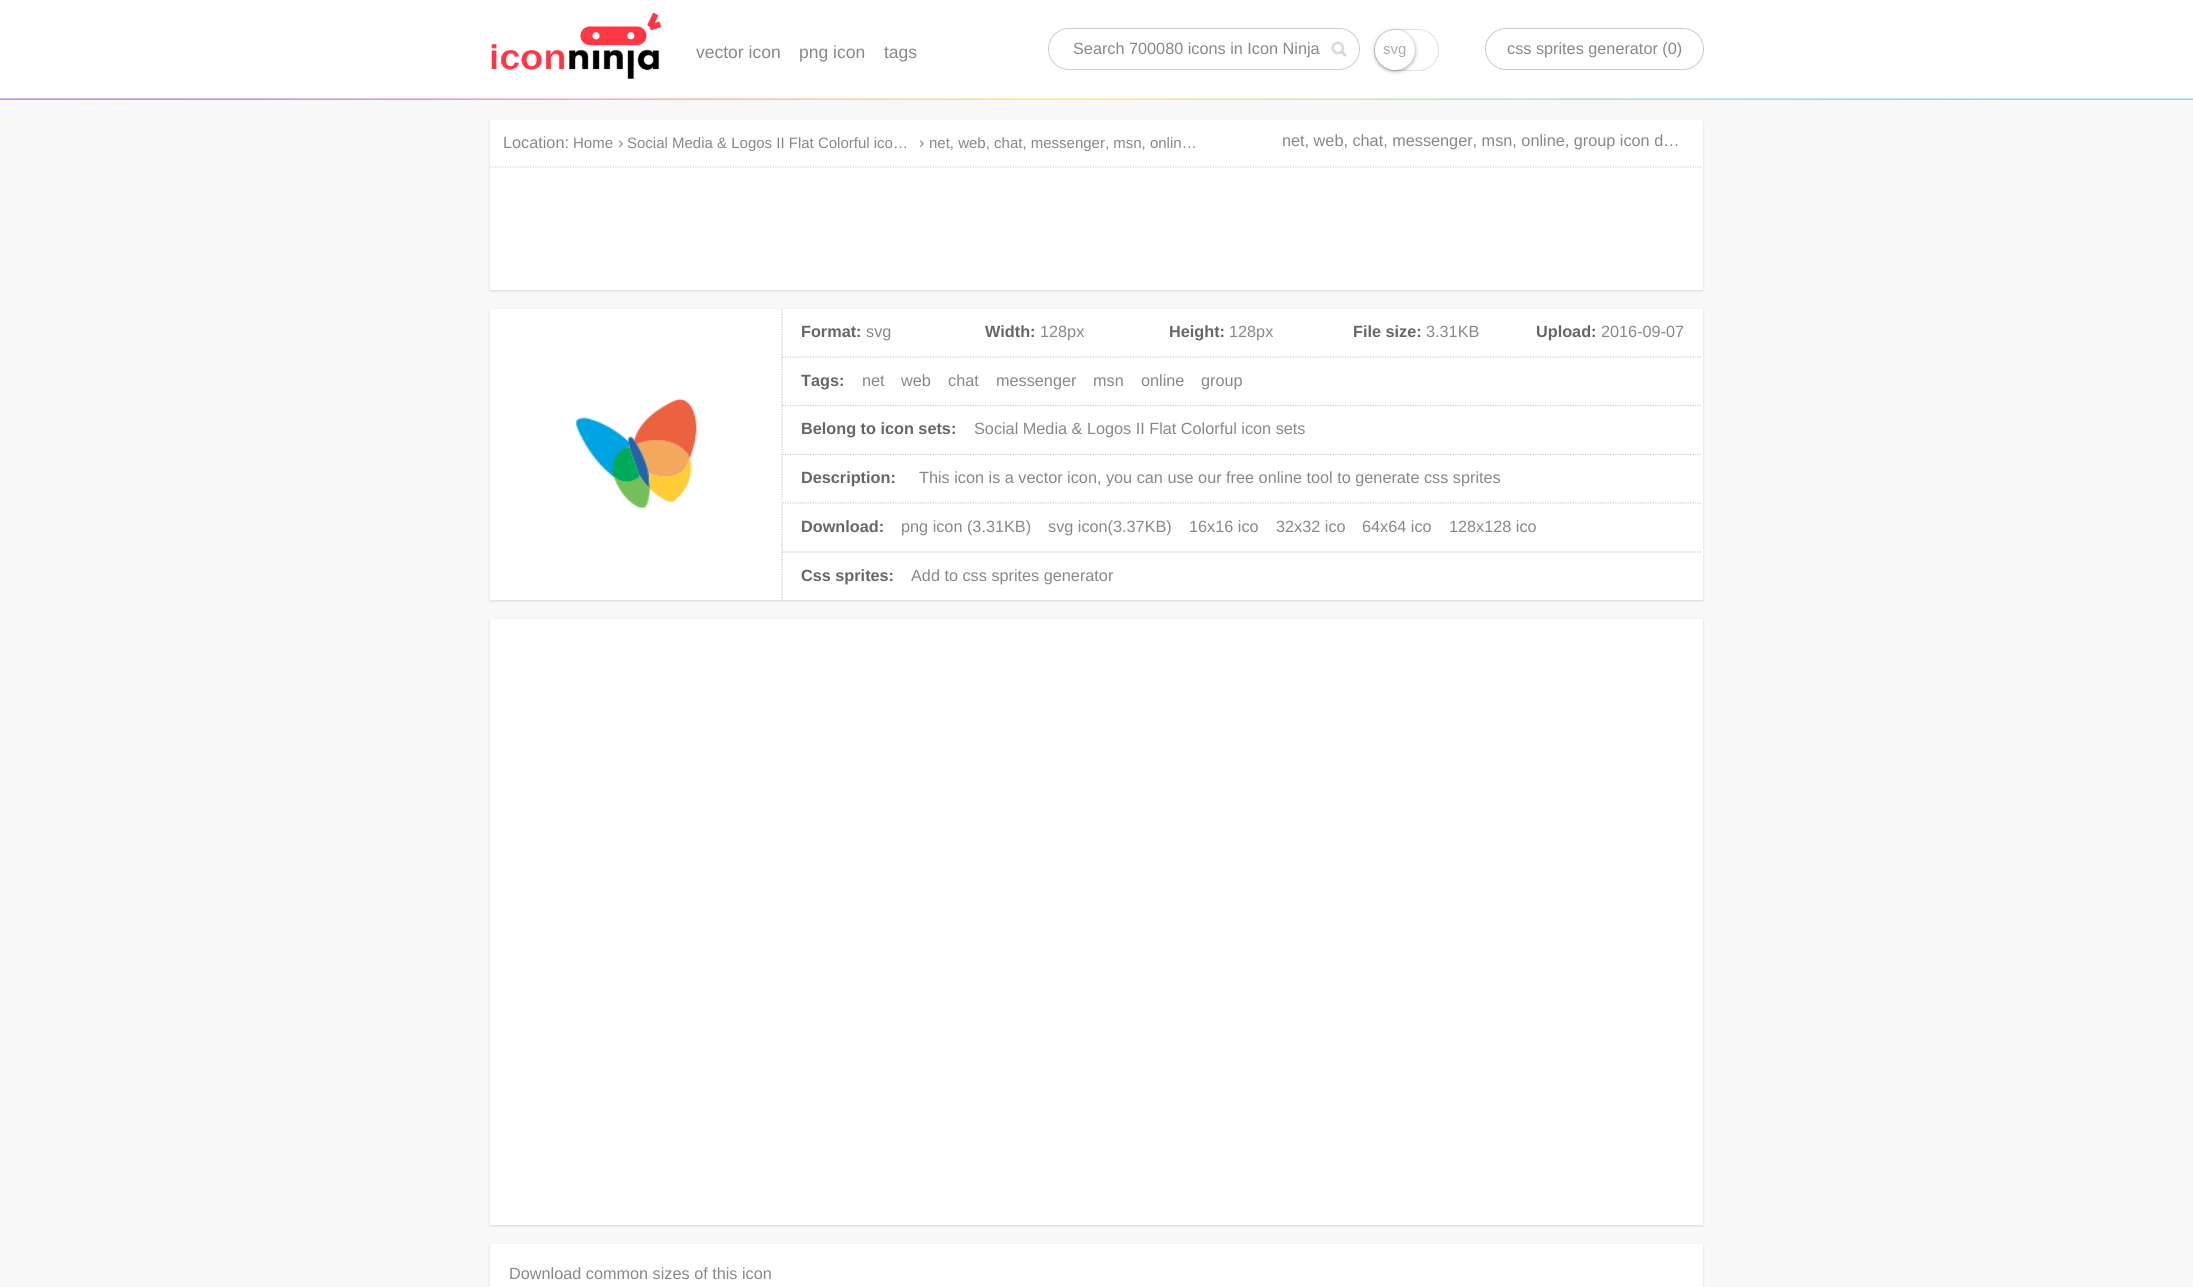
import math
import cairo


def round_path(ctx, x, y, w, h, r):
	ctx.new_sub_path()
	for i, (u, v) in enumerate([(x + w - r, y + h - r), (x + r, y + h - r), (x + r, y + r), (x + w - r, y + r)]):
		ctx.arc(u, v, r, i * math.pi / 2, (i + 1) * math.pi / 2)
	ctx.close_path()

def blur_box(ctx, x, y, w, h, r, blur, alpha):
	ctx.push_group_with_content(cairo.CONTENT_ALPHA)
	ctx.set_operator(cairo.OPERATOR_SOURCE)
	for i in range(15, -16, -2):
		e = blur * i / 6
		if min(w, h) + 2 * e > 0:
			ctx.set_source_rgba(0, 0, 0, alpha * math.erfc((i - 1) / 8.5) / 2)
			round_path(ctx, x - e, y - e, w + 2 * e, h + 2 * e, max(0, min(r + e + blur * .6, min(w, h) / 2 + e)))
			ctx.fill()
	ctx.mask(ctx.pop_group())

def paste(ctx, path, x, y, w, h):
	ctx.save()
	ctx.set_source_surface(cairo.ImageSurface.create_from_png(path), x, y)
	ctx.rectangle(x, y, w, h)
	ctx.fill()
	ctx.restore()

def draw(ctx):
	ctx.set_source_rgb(0.969, 0.969, 0.969)
	ctx.paint()
	ctx.set_source_rgb(1, 1, 1)
	ctx.rectangle(0, 0, 2193, 100)
	ctx.fill()
	paste(ctx, 'media/1.png', 0, 98, 2193, 2)
	paste(ctx, 'media/2.png', 491, 12, 171, 67)
	ctx.select_font_face('Liberation Sans')
	ctx.set_font_size(17.5)
	ctx.set_source_rgb(0.533, 0.533, 0.533)
	for x, y, s in [
		(696, 58, 'vector icon'),
		(799, 58, 'png icon'),
		(884, 58, 'tags'),
	]:
		ctx.move_to(x, y)
		ctx.show_text(s)
	round_path(ctx, 1048.5, 28.5, 311, 41, 20.5)
	ctx.set_source_rgb(0.808, 0.808, 0.808)
	ctx.set_line_width(1)
	ctx.stroke()
	ctx.set_font_size(16.25)
	ctx.set_source_rgb(0.533, 0.533, 0.533)
	ctx.move_to(1073, 54)
	ctx.show_text('Search 700080 icons in Icon Ninja')
	paste(ctx, 'media/3.png', 1331, 41, 16, 16)
	round_path(ctx, 1374.5, 29.5, 64, 41, 20.5)
	ctx.set_source_rgb(0.875, 0.875, 0.875)
	ctx.stroke()
	ctx.set_source_rgb(0, 0, 0)
	blur_box(ctx, 1375, 31, 40, 40, 20, 2, 0.4)
	ctx.set_source_rgb(1, 1, 1)
	ctx.arc(1395, 50, 20, 0, 2 * math.pi)
	ctx.fill()
	ctx.set_font_size(15)
	ctx.set_source_rgb(0.667, 0.667, 0.667)
	ctx.move_to(1383, 54)
	ctx.show_text('svg')
	round_path(ctx, 1485.5, 28.5, 218, 41, 20.5)
	ctx.set_source_rgb(0.8, 0.8, 0.8)
	ctx.stroke()
	ctx.set_font_size(16.25)
	ctx.set_source_rgb(0.533, 0.533, 0.533)
	ctx.move_to(1507, 54)
	ctx.show_text('css sprites generator (0)')
	ctx.set_source_rgb(0.133, 0.141, 0.149)
	blur_box(ctx, 490, 121, 1213, 170, 0, 1, 0.15)
	ctx.set_source_rgb(1, 1, 1)
	ctx.rectangle(490, 120, 1213, 170)
	ctx.fill()
	ctx.set_source_rgb(0.533, 0.533, 0.533)
	ctx.move_to(1282, 146)
	ctx.show_text('net, web, chat, messenger, msn, online, group icon d…')
	ctx.set_source_rgb(0.133, 0.141, 0.149)
	blur_box(ctx, 490, 310, 1213, 291, 0, 1, 0.15)
	ctx.set_source_rgb(1, 1, 1)
	ctx.rectangle(490, 309, 1213, 291)
	ctx.fill()
	ctx.new_path()
	ctx.move_to(782.5, 357)
	ctx.line_to(1701, 357)
	ctx.set_source_rgb(0.8, 0.8, 0.8)
	ctx.set_line_width(1.2)
	ctx.set_dash([1.25, 1.25])
	ctx.stroke()
	ctx.new_path()
	ctx.move_to(782.5, 405.5)
	ctx.line_to(1701, 405.5)
	ctx.stroke()
	ctx.new_path()
	ctx.move_to(782.5, 454.5)
	ctx.line_to(1701, 454.5)
	ctx.stroke()
	ctx.new_path()
	ctx.move_to(782.5, 503)
	ctx.line_to(1701, 503)
	ctx.stroke()
	ctx.new_path()
	ctx.move_to(782.5, 552)
	ctx.line_to(1701, 552)
	ctx.stroke()
	ctx.save()
	ctx.rectangle(490, 309, 1213, 291)
	ctx.clip()
	ctx.new_path()
	ctx.move_to(782.5, 600.5)
	ctx.line_to(1701, 600.5)
	ctx.stroke()
	ctx.restore()
	ctx.new_path()
	ctx.move_to(782, 309)
	ctx.line_to(782, 600)
	ctx.stroke()
	paste(ctx, 'media/4.png', 576, 398, 121, 111)
	ctx.select_font_face('Liberation Sans', cairo.FONT_SLANT_NORMAL, cairo.FONT_WEIGHT_BOLD)
	ctx.set_source_rgb(0.4, 0.4, 0.4)
	ctx.move_to(801, 337)
	ctx.show_text('Format:')
	ctx.select_font_face('Liberation Sans')
	ctx.set_source_rgb(0.533, 0.533, 0.533)
	ctx.move_to(866, 337)
	ctx.show_text('svg')
	ctx.select_font_face('Liberation Sans', cairo.FONT_SLANT_NORMAL, cairo.FONT_WEIGHT_BOLD)
	ctx.set_source_rgb(0.4, 0.4, 0.4)
	ctx.move_to(985, 337)
	ctx.show_text('Width:')
	ctx.select_font_face('Liberation Sans')
	ctx.set_source_rgb(0.533, 0.533, 0.533)
	ctx.move_to(1040, 337)
	ctx.show_text('128px')
	ctx.select_font_face('Liberation Sans', cairo.FONT_SLANT_NORMAL, cairo.FONT_WEIGHT_BOLD)
	ctx.set_source_rgb(0.4, 0.4, 0.4)
	ctx.move_to(1169, 337)
	ctx.show_text('Height:')
	ctx.select_font_face('Liberation Sans')
	ctx.set_source_rgb(0.533, 0.533, 0.533)
	ctx.move_to(1229, 337)
	ctx.show_text('128px')
	ctx.select_font_face('Liberation Sans', cairo.FONT_SLANT_NORMAL, cairo.FONT_WEIGHT_BOLD)
	ctx.set_source_rgb(0.4, 0.4, 0.4)
	ctx.move_to(1353, 337)
	ctx.show_text('File size:')
	ctx.select_font_face('Liberation Sans')
	ctx.set_source_rgb(0.533, 0.533, 0.533)
	ctx.move_to(1426, 337)
	ctx.show_text('3.31KB')
	ctx.select_font_face('Liberation Sans', cairo.FONT_SLANT_NORMAL, cairo.FONT_WEIGHT_BOLD)
	ctx.set_source_rgb(0.4, 0.4, 0.4)
	ctx.move_to(1536, 337)
	ctx.show_text('Upload:')
	ctx.select_font_face('Liberation Sans')
	ctx.set_source_rgb(0.533, 0.533, 0.533)
	ctx.move_to(1601, 337)
	ctx.show_text('2016-09-07')
	ctx.select_font_face('Liberation Sans', cairo.FONT_SLANT_NORMAL, cairo.FONT_WEIGHT_BOLD)
	ctx.set_source_rgb(0.4, 0.4, 0.4)
	ctx.move_to(801, 386)
	ctx.show_text('Tags:')
	ctx.select_font_face('Liberation Sans')
	ctx.set_source_rgb(0.533, 0.533, 0.533)
	for x, y, s in [
		(862, 386, 'net'),
		(901, 386, 'web'),
		(948, 386, 'chat'),
		(996, 386, 'messenger'),
		(1093, 386, 'msn'),
		(1141, 386, 'online'),
		(1201, 386, 'group'),
	]:
		ctx.move_to(x, y)
		ctx.show_text(s)
	ctx.select_font_face('Liberation Sans', cairo.FONT_SLANT_NORMAL, cairo.FONT_WEIGHT_BOLD)
	ctx.set_source_rgb(0.4, 0.4, 0.4)
	ctx.move_to(801, 434)
	ctx.show_text('Belong to icon sets:')
	ctx.select_font_face('Liberation Sans')
	ctx.set_source_rgb(0.533, 0.533, 0.533)
	ctx.move_to(974, 434)
	ctx.show_text('Social Media & Logos II Flat Colorful icon sets')
	ctx.select_font_face('Liberation Sans', cairo.FONT_SLANT_NORMAL, cairo.FONT_WEIGHT_BOLD)
	ctx.set_source_rgb(0.4, 0.4, 0.4)
	ctx.move_to(801, 483)
	ctx.show_text('Description:')
	ctx.select_font_face('Liberation Sans')
	ctx.set_source_rgb(0.533, 0.533, 0.533)
	ctx.move_to(919, 483)
	ctx.show_text('This icon is a vector icon, you can use our free online tool to generate css sprites')
	ctx.select_font_face('Liberation Sans', cairo.FONT_SLANT_NORMAL, cairo.FONT_WEIGHT_BOLD)
	ctx.set_source_rgb(0.4, 0.4, 0.4)
	ctx.move_to(801, 532)
	ctx.show_text('Download:')
	ctx.select_font_face('Liberation Sans')
	ctx.set_source_rgb(0.533, 0.533, 0.533)
	for x, y, s in [
		(901, 532, 'png icon (3.31KB)'),
		(1048, 532, 'svg icon(3.37KB)'),
		(1189, 532, '16x16 ico'),
		(1276, 532, '32x32 ico'),
		(1362, 532, '64x64 ico'),
		(1449, 532, '128x128 ico'),
	]:
		ctx.move_to(x, y)
		ctx.show_text(s)
	ctx.select_font_face('Liberation Sans', cairo.FONT_SLANT_NORMAL, cairo.FONT_WEIGHT_BOLD)
	ctx.set_source_rgb(0.4, 0.4, 0.4)
	ctx.move_to(801, 581)
	ctx.show_text('Css sprites:')
	ctx.select_font_face('Liberation Sans')
	ctx.set_source_rgb(0.533, 0.533, 0.533)
	ctx.move_to(911, 581)
	ctx.show_text('Add to css sprites generator')
	ctx.set_source_rgb(0.133, 0.141, 0.149)
	blur_box(ctx, 490, 620, 1213, 606, 0, 1, 0.15)
	ctx.set_source_rgb(1, 1, 1)
	ctx.rectangle(490, 619, 1213, 606)
	ctx.fill()
	ctx.set_source_rgb(0.133, 0.141, 0.149)
	blur_box(ctx, 490, 1245, 1213, 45, 0, 1, 0.15)
	ctx.set_source_rgb(1, 1, 1)
	ctx.rectangle(490, 1244, 1213, 43)
	ctx.fill()
	ctx.set_source_rgb(0.533, 0.533, 0.533)
	ctx.move_to(509, 1279)
	ctx.show_text('Download common sizes of this icon')
	ctx.move_to(503, 148)
	ctx.show_text('Location:')
	ctx.set_font_size(15)
	ctx.move_to(573, 148)
	ctx.show_text('Home')
	ctx.set_font_size(16.25)
	ctx.move_to(618, 148)
	ctx.show_text('›')
	ctx.set_font_size(15)
	ctx.move_to(627, 148)
	ctx.show_text('Social Media & Logos II Flat Colorful ico…')
	ctx.set_font_size(16.25)
	ctx.move_to(919, 148)
	ctx.show_text('›')
	ctx.set_font_size(15)
	ctx.move_to(929, 148)
	ctx.show_text('net, web, chat, messenger, msn, onlin…')
	ctx.new_path()
	ctx.move_to(490, 167)
	ctx.line_to(1702.5, 167)
	ctx.set_source_rgb(0.827, 0.827, 0.827)
	ctx.stroke()


surface = cairo.ImageSurface(cairo.FORMAT_RGB24, 2193, 1287)
ctx = cairo.Context(surface)
options = cairo.FontOptions()
options.set_hint_metrics(cairo.HINT_METRICS_OFF)
options.set_hint_style(cairo.HINT_STYLE_NONE)
ctx.set_font_options(options)
ctx.set_miter_limit(4)
draw(ctx)
surface.write_to_png('image.png')
